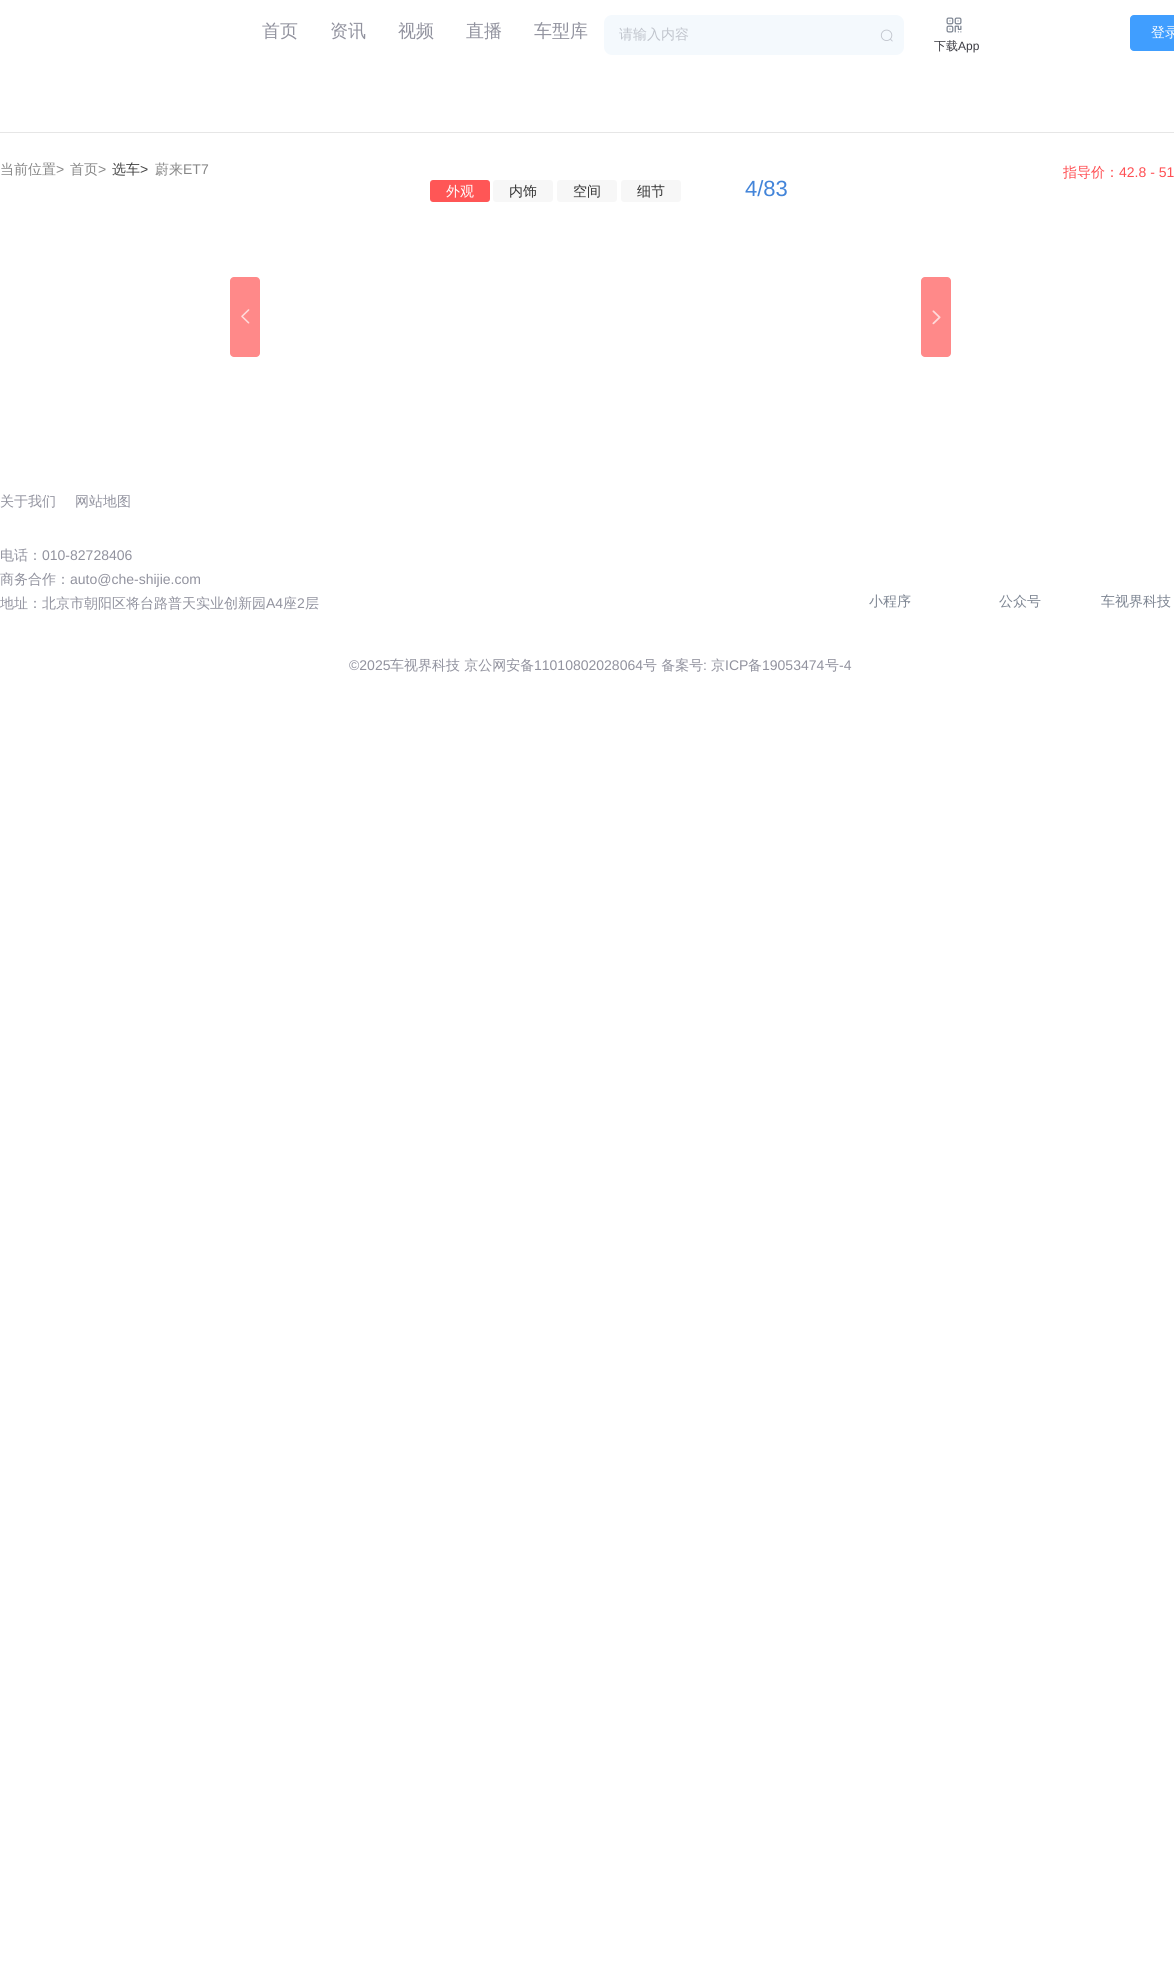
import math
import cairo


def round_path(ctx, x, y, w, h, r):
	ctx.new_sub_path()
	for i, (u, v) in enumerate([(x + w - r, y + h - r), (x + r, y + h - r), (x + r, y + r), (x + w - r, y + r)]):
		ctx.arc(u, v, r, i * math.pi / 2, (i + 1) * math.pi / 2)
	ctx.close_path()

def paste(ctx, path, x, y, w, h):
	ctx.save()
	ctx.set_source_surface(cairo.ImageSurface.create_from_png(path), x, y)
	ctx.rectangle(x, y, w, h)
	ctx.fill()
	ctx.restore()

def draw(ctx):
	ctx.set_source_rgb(1, 1, 1)
	ctx.paint()
	ctx.set_source_rgb(0.902, 0.902, 0.902)
	ctx.rectangle(0, 132, 1174, 1)
	ctx.fill()
	ctx.select_font_face('WenQuanYi Zen Hei Medium')
	ctx.set_font_size(18)
	ctx.set_source_rgb(0.569, 0.573, 0.62)
	for x, y, s in [
		(262, 37, '首页'),
		(330, 37, '资讯'),
		(398, 37, '视频'),
		(466, 37, '直播'),
		(534, 37, '车型库'),
	]:
		ctx.move_to(x, y)
		ctx.show_text(s)
	ctx.set_source_rgb(0.957, 0.976, 0.992)
	round_path(ctx, 604, 15, 300, 40, 8)
	ctx.fill()
	ctx.set_font_size(14)
	ctx.set_source_rgb(0.753, 0.769, 0.8)
	ctx.move_to(619, 39)
	ctx.show_text('请输入内容')
	paste(ctx, 'media/1.png', 880, 29, 13, 13)
	ctx.set_source_rgb(0.251, 0.62, 1)
	round_path(ctx, 1130.5, 15.5, 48, 35, 3.5)
	ctx.fill_preserve()
	ctx.set_line_width(1)
	ctx.stroke()
	ctx.set_source_rgb(1, 1, 1)
	ctx.move_to(1151, 37)
	ctx.show_text('登录')
	paste(ctx, 'media/2.png', 946, 17, 16, 16)
	ctx.set_font_size(12)
	ctx.set_source_rgb(0.235, 0.235, 0.263)
	ctx.move_to(934, 50)
	ctx.show_text('下载')
	ctx.select_font_face('Liberation Sans')
	ctx.move_to(958, 50)
	ctx.show_text('App')
	ctx.select_font_face('WenQuanYi Zen Hei Medium')
	ctx.set_font_size(14)
	ctx.set_source_rgb(0.525, 0.525, 0.525)
	ctx.move_to(0, 174)
	ctx.show_text('当前位置')
	ctx.select_font_face('Liberation Sans')
	ctx.move_to(56, 174)
	ctx.show_text('>')
	ctx.select_font_face('WenQuanYi Zen Hei Medium')
	ctx.move_to(70, 174)
	ctx.show_text('首页')
	ctx.select_font_face('Liberation Sans')
	ctx.move_to(98, 174)
	ctx.show_text('>')
	ctx.select_font_face('WenQuanYi Zen Hei Medium')
	ctx.set_source_rgb(0.263, 0.263, 0.263)
	ctx.move_to(112, 174)
	ctx.show_text('选车')
	ctx.select_font_face('Liberation Sans')
	ctx.move_to(140, 174)
	ctx.show_text('>')
	ctx.select_font_face('WenQuanYi Zen Hei Medium')
	ctx.set_source_rgb(0.525, 0.525, 0.525)
	ctx.move_to(155, 174)
	ctx.show_text('蔚来')
	ctx.select_font_face('Liberation Sans')
	ctx.move_to(183, 174)
	ctx.show_text('ET7')
	ctx.select_font_face('WenQuanYi Zen Hei Medium')
	ctx.set_source_rgb(1, 0.31, 0.325)
	ctx.move_to(1063, 177)
	ctx.show_text('指导价：')
	ctx.select_font_face('Liberation Sans')
	ctx.move_to(1119, 177)
	ctx.show_text('42.8 - 51')
	ctx.set_source_rgb(1, 0.337, 0.337)
	round_path(ctx, 430, 180, 60, 22, 3)
	ctx.fill()
	ctx.select_font_face('WenQuanYi Zen Hei Medium')
	ctx.set_source_rgb(1, 1, 1)
	ctx.move_to(446, 196)
	ctx.show_text('外观')
	ctx.set_source_rgb(0.965, 0.965, 0.965)
	round_path(ctx, 493, 180, 60, 22, 3)
	ctx.fill()
	ctx.set_source_rgb(0.2, 0.2, 0.2)
	ctx.move_to(509, 196)
	ctx.show_text('内饰')
	ctx.set_source_rgb(0.965, 0.965, 0.965)
	round_path(ctx, 557, 180, 60, 22, 3)
	ctx.fill()
	ctx.set_source_rgb(0.2, 0.2, 0.2)
	ctx.move_to(573, 196)
	ctx.show_text('空间')
	ctx.set_source_rgb(0.965, 0.965, 0.965)
	round_path(ctx, 621, 180, 60, 22, 3)
	ctx.fill()
	ctx.set_source_rgb(0.2, 0.2, 0.2)
	ctx.move_to(637, 196)
	ctx.show_text('细节')
	ctx.select_font_face('Liberation Sans')
	ctx.set_font_size(22)
	ctx.set_source_rgb(0.259, 0.518, 0.851)
	ctx.move_to(745, 196)
	ctx.show_text('4/83')
	ctx.set_source_rgb(1, 0.537, 0.537)
	round_path(ctx, 230, 277, 30, 80, 4)
	ctx.fill()
	paste(ctx, 'media/3.png', 241, 309, 9, 15)
	round_path(ctx, 921, 277, 30, 80, 4)
	ctx.fill()
	paste(ctx, 'media/4.png', 932, 310, 9, 15)
	ctx.select_font_face('WenQuanYi Zen Hei Medium')
	ctx.set_font_size(14)
	ctx.set_source_rgb(0.569, 0.573, 0.62)
	for x, y, s in [
		(0, 506, '关于我们'),
		(75, 506, '网站地图'),
		(0, 560, '电话：'),
	]:
		ctx.move_to(x, y)
		ctx.show_text(s)
	ctx.select_font_face('Liberation Sans')
	ctx.move_to(42, 560)
	ctx.show_text('010-82728406')
	ctx.select_font_face('WenQuanYi Zen Hei Medium')
	ctx.move_to(0, 584)
	ctx.show_text('商务合作：')
	ctx.select_font_face('Liberation Sans')
	ctx.move_to(70, 584)
	ctx.show_text('auto@che-shijie.com')
	ctx.select_font_face('WenQuanYi Zen Hei Medium')
	ctx.move_to(0, 608)
	ctx.show_text('地址：北京市朝阳区将台路普天实业创新园')
	ctx.select_font_face('Liberation Sans')
	ctx.move_to(266, 608)
	ctx.show_text('A4')
	ctx.select_font_face('WenQuanYi Zen Hei Medium')
	ctx.move_to(283, 608)
	ctx.show_text('座')
	ctx.select_font_face('Liberation Sans')
	ctx.move_to(297, 608)
	ctx.show_text('2')
	ctx.select_font_face('WenQuanYi Zen Hei Medium')
	ctx.move_to(305, 608)
	ctx.show_text('层')
	ctx.set_source_rgb(0.49, 0.522, 0.573)
	for x, y, s in [
		(869, 606, '小程序'),
		(999, 606, '公众号'),
		(1101, 606, '车视界科技'),
	]:
		ctx.move_to(x, y)
		ctx.show_text(s)
	ctx.select_font_face('Liberation Sans')
	ctx.set_source_rgb(0.569, 0.573, 0.62)
	ctx.move_to(349, 670)
	ctx.show_text('©2025')
	ctx.select_font_face('WenQuanYi Zen Hei Medium')
	ctx.move_to(390, 670)
	ctx.show_text('车视界科技 京公网安备')
	ctx.select_font_face('Liberation Sans')
	ctx.move_to(534, 670)
	ctx.show_text('11010802028064')
	ctx.select_font_face('WenQuanYi Zen Hei Medium')
	ctx.move_to(643, 670)
	ctx.show_text('号 备案号')
	ctx.select_font_face('Liberation Sans')
	ctx.move_to(703, 670)
	ctx.show_text(':')
	ctx.select_font_face('WenQuanYi Zen Hei Medium')
	ctx.move_to(711, 670)
	ctx.show_text('京')
	ctx.select_font_face('Liberation Sans')
	ctx.move_to(725, 670)
	ctx.show_text('ICP')
	ctx.select_font_face('WenQuanYi Zen Hei Medium')
	ctx.move_to(748, 670)
	ctx.show_text('备')
	ctx.select_font_face('Liberation Sans')
	ctx.move_to(762, 670)
	ctx.show_text('19053474')
	ctx.select_font_face('WenQuanYi Zen Hei Medium')
	ctx.move_to(825, 670)
	ctx.show_text('号')
	ctx.select_font_face('Liberation Sans')
	ctx.move_to(839, 670)
	ctx.show_text('-4')


surface = cairo.ImageSurface(cairo.FORMAT_RGB24, 1174, 1961)
ctx = cairo.Context(surface)
options = cairo.FontOptions()
options.set_hint_metrics(cairo.HINT_METRICS_OFF)
options.set_hint_style(cairo.HINT_STYLE_NONE)
ctx.set_font_options(options)
ctx.set_miter_limit(4)
draw(ctx)
surface.write_to_png('image.png')
